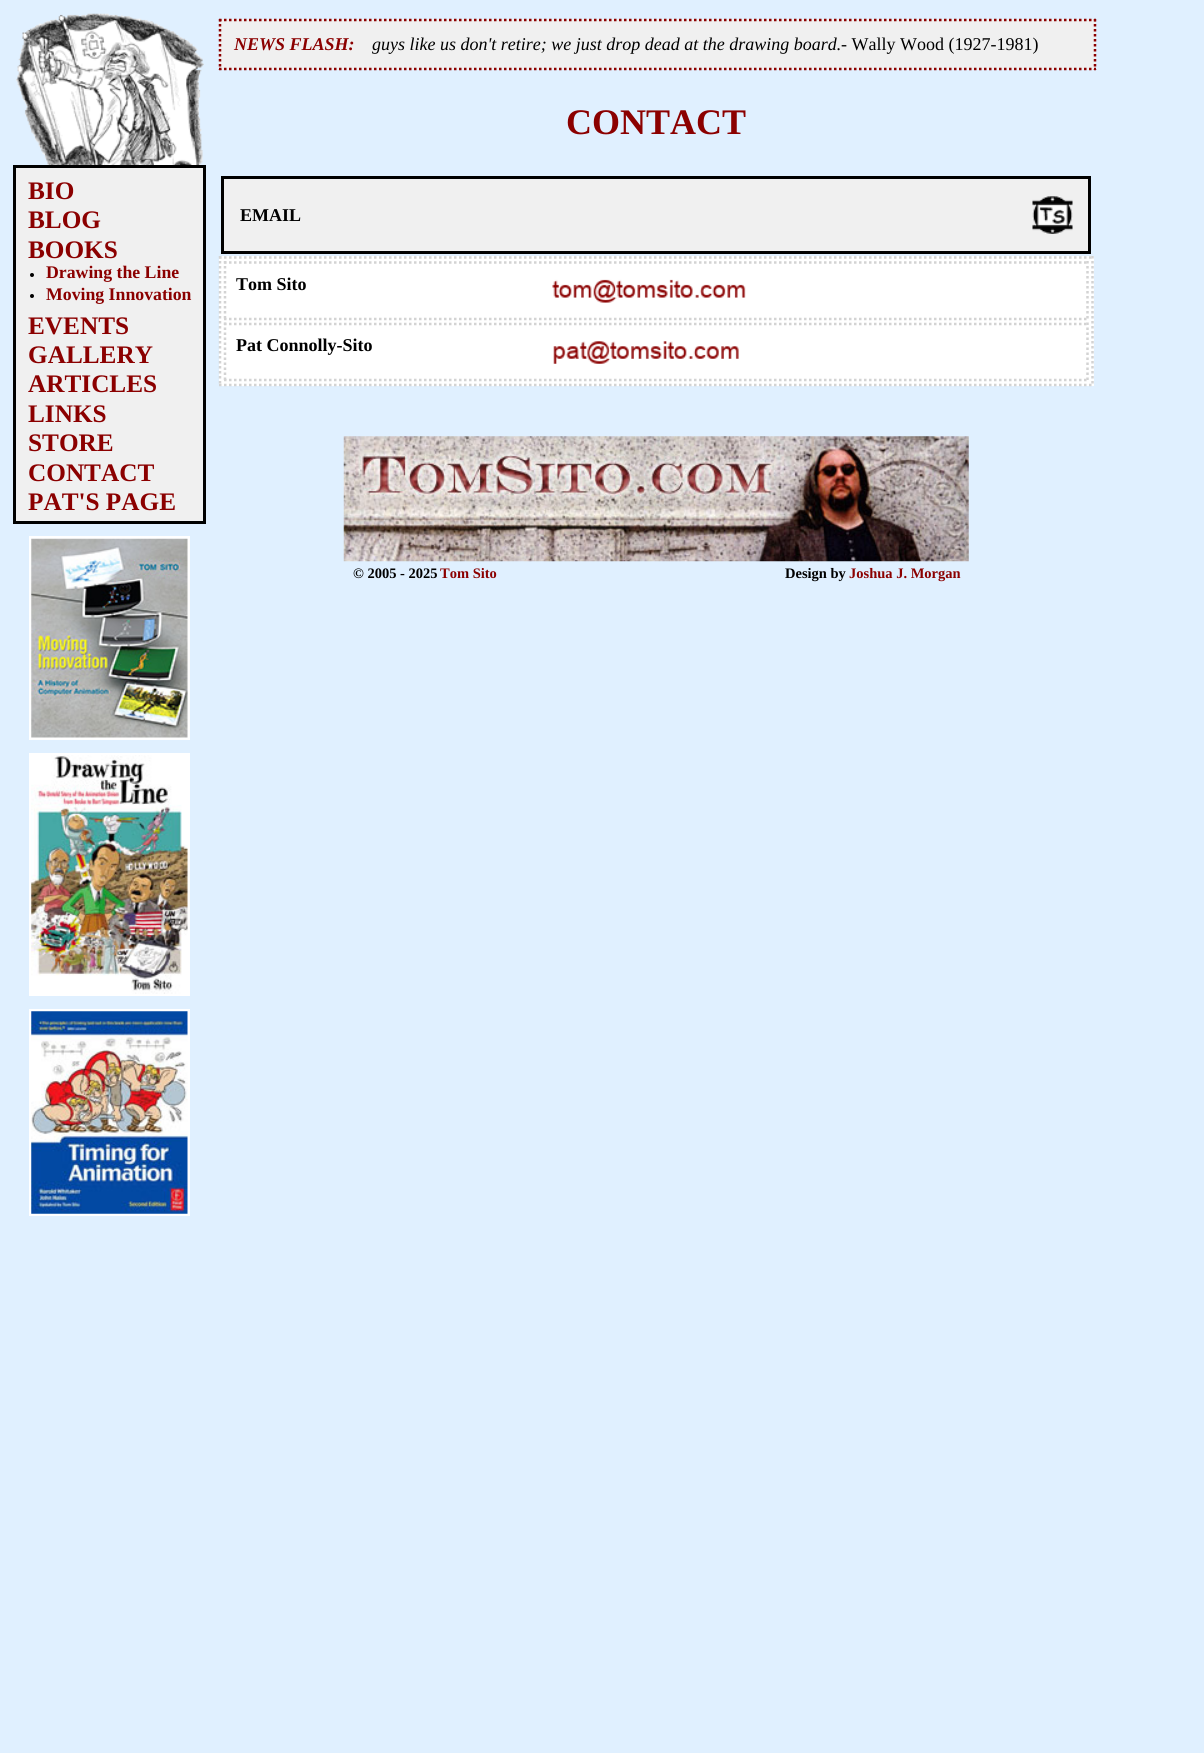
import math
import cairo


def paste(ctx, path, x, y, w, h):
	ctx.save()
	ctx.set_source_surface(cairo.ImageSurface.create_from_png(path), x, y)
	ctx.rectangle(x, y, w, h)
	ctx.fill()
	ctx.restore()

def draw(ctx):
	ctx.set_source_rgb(0.878, 0.941, 1)
	ctx.paint()
	paste(ctx, 'media/1.png', 16, 13, 188, 152)
	ctx.set_source_rgb(0.941, 0.941, 0.941)
	ctx.rectangle(14.5, 166.5, 190, 356)
	ctx.fill_preserve()
	ctx.set_source_rgb(0, 0, 0)
	ctx.set_line_width(3)
	ctx.stroke()
	ctx.select_font_face('Liberation Serif', cairo.FONT_SLANT_NORMAL, cairo.FONT_WEIGHT_BOLD)
	ctx.set_font_size(25.25)
	ctx.set_source_rgb(0.545, 0, 0)
	for x, y, s in [
		(28, 199, 'BIO'),
		(28, 228, 'BLOG'),
		(28, 258, 'BOOKS'),
	]:
		ctx.move_to(x, y)
		ctx.show_text(s)
	ctx.set_source_rgb(0, 0, 0)
	ctx.new_path()
	ctx.arc(32, 275, 2, 0, 2 * math.pi)
	ctx.fill()
	ctx.set_font_size(17.75)
	ctx.set_source_rgb(0.545, 0, 0)
	ctx.move_to(46, 278)
	ctx.show_text('Drawing the Line')
	ctx.set_source_rgb(0, 0, 0)
	ctx.new_path()
	ctx.arc(32, 296, 2, 0, 2 * math.pi)
	ctx.fill()
	ctx.set_source_rgb(0.545, 0, 0)
	ctx.move_to(46, 300)
	ctx.show_text('Moving Innovation')
	ctx.set_font_size(25.25)
	for x, y, s in [
		(28, 334, 'EVENTS'),
		(28, 363, 'GALLERY'),
		(28, 392, 'ARTICLES'),
		(28, 422, 'LINKS'),
		(28, 451, 'STORE'),
		(28, 481, 'CONTACT'),
		(28, 510, 'PAT\'S PAGE'),
	]:
		ctx.move_to(x, y)
		ctx.show_text(s)
	ctx.rectangle(30.5, 537.5, 158, 201)
	ctx.set_source_rgb(1, 1, 1)
	ctx.stroke()
	paste(ctx, 'media/2.png', 31, 538, 157, 200)
	ctx.rectangle(30.5, 754.5, 158, 240)
	ctx.stroke()
	paste(ctx, 'media/3.png', 31, 755, 157, 239)
	ctx.rectangle(30.5, 1010.5, 158, 204)
	ctx.stroke()
	paste(ctx, 'media/4.png', 31, 1011, 157, 203)
	ctx.set_source_rgb(0.941, 0.941, 0.941)
	ctx.rectangle(219, 19, 877, 51)
	ctx.fill()
	ctx.new_path()
	ctx.move_to(219, 20)
	ctx.line_to(1096, 20)
	ctx.set_source_rgb(0.545, 0, 0)
	ctx.set_line_width(2.5)
	ctx.set_dash([2.5, 2.5])
	ctx.stroke()
	ctx.new_path()
	ctx.move_to(1095, 19)
	ctx.line_to(1095, 70)
	ctx.stroke()
	ctx.new_path()
	ctx.move_to(219, 69)
	ctx.line_to(1096, 69)
	ctx.stroke()
	ctx.new_path()
	ctx.move_to(220, 19)
	ctx.line_to(220, 70)
	ctx.stroke()
	ctx.select_font_face('Liberation Serif', cairo.FONT_SLANT_ITALIC, cairo.FONT_WEIGHT_BOLD)
	ctx.set_font_size(18)
	ctx.move_to(234, 50)
	ctx.show_text('NEWS FLASH:')
	ctx.select_font_face('Liberation Serif', cairo.FONT_SLANT_ITALIC)
	ctx.set_source_rgb(0, 0, 0)
	ctx.move_to(372, 50)
	ctx.show_text('guys like us don\'t retire; we just drop dead at the drawing board.')
	ctx.select_font_face('Liberation Serif')
	ctx.move_to(841, 50)
	ctx.show_text('- Wally Wood (1927-1981)')
	ctx.select_font_face('Liberation Serif', cairo.FONT_SLANT_NORMAL, cairo.FONT_WEIGHT_BOLD)
	ctx.set_font_size(36)
	ctx.set_source_rgb(0.545, 0, 0)
	ctx.move_to(566, 134)
	ctx.show_text('CONTACT')
	ctx.set_source_rgb(0.941, 0.941, 0.941)
	ctx.rectangle(222.5, 177.5, 867, 75)
	ctx.fill_preserve()
	ctx.set_source_rgb(0, 0, 0)
	ctx.set_line_width(3)
	ctx.set_dash([])
	ctx.stroke()
	ctx.set_font_size(18)
	ctx.move_to(240, 221)
	ctx.show_text('EMAIL')
	paste(ctx, 'media/5.png', 1032, 196, 41, 38)
	ctx.set_source_rgb(1, 1, 1)
	ctx.rectangle(219, 256, 875, 130)
	ctx.fill()
	ctx.new_path()
	ctx.move_to(219, 257.5)
	ctx.line_to(1094, 257.5)
	ctx.set_source_rgb(0.827, 0.827, 0.827)
	ctx.set_line_width(2.5)
	ctx.set_dash([2.5, 2.5])
	ctx.stroke()
	ctx.new_path()
	ctx.move_to(1092.5, 256)
	ctx.line_to(1092.5, 386)
	ctx.stroke()
	ctx.new_path()
	ctx.move_to(219, 385)
	ctx.line_to(1094, 385)
	ctx.stroke()
	ctx.new_path()
	ctx.move_to(220, 256)
	ctx.line_to(220, 386)
	ctx.stroke()
	ctx.new_path()
	ctx.move_to(224, 262.5)
	ctx.line_to(1089, 262.5)
	ctx.stroke()
	ctx.new_path()
	ctx.move_to(1087.5, 261)
	ctx.line_to(1087.5, 320)
	ctx.stroke()
	ctx.new_path()
	ctx.move_to(224, 319)
	ctx.line_to(1089, 319)
	ctx.stroke()
	ctx.new_path()
	ctx.move_to(225, 261)
	ctx.line_to(225, 320)
	ctx.stroke()
	ctx.set_source_rgb(0, 0, 0)
	ctx.move_to(236, 290)
	ctx.show_text('Tom Sito')
	paste(ctx, 'media/6.png', 552, 279, 194, 24)
	ctx.new_path()
	ctx.move_to(224, 324)
	ctx.line_to(1089, 324)
	ctx.set_source_rgb(0.827, 0.827, 0.827)
	ctx.stroke()
	ctx.new_path()
	ctx.move_to(1087.5, 322.5)
	ctx.line_to(1087.5, 381)
	ctx.stroke()
	ctx.new_path()
	ctx.move_to(224, 380)
	ctx.line_to(1089, 380)
	ctx.stroke()
	ctx.new_path()
	ctx.move_to(225, 322.5)
	ctx.line_to(225, 381)
	ctx.stroke()
	ctx.set_source_rgb(0, 0, 0)
	ctx.move_to(236, 351)
	ctx.show_text('Pat Connolly-Sito')
	paste(ctx, 'media/7.png', 553, 341, 186, 23)
	paste(ctx, 'media/8.png', 343, 436, 626, 126)
	ctx.set_font_size(14.5)
	ctx.move_to(353, 578)
	ctx.show_text('© 2005 - 2025')
	ctx.set_source_rgb(0.545, 0, 0)
	ctx.move_to(440, 578)
	ctx.show_text('Tom Sito')
	ctx.set_source_rgb(0, 0, 0)
	ctx.move_to(785, 578)
	ctx.show_text('Design by')
	ctx.set_source_rgb(0.545, 0, 0)
	ctx.move_to(849, 578)
	ctx.show_text('Joshua J. Morgan')


surface = cairo.ImageSurface(cairo.FORMAT_RGB24, 1204, 1753)
ctx = cairo.Context(surface)
options = cairo.FontOptions()
options.set_hint_metrics(cairo.HINT_METRICS_OFF)
options.set_hint_style(cairo.HINT_STYLE_NONE)
ctx.set_font_options(options)
ctx.set_miter_limit(4)
draw(ctx)
surface.write_to_png('image.png')
